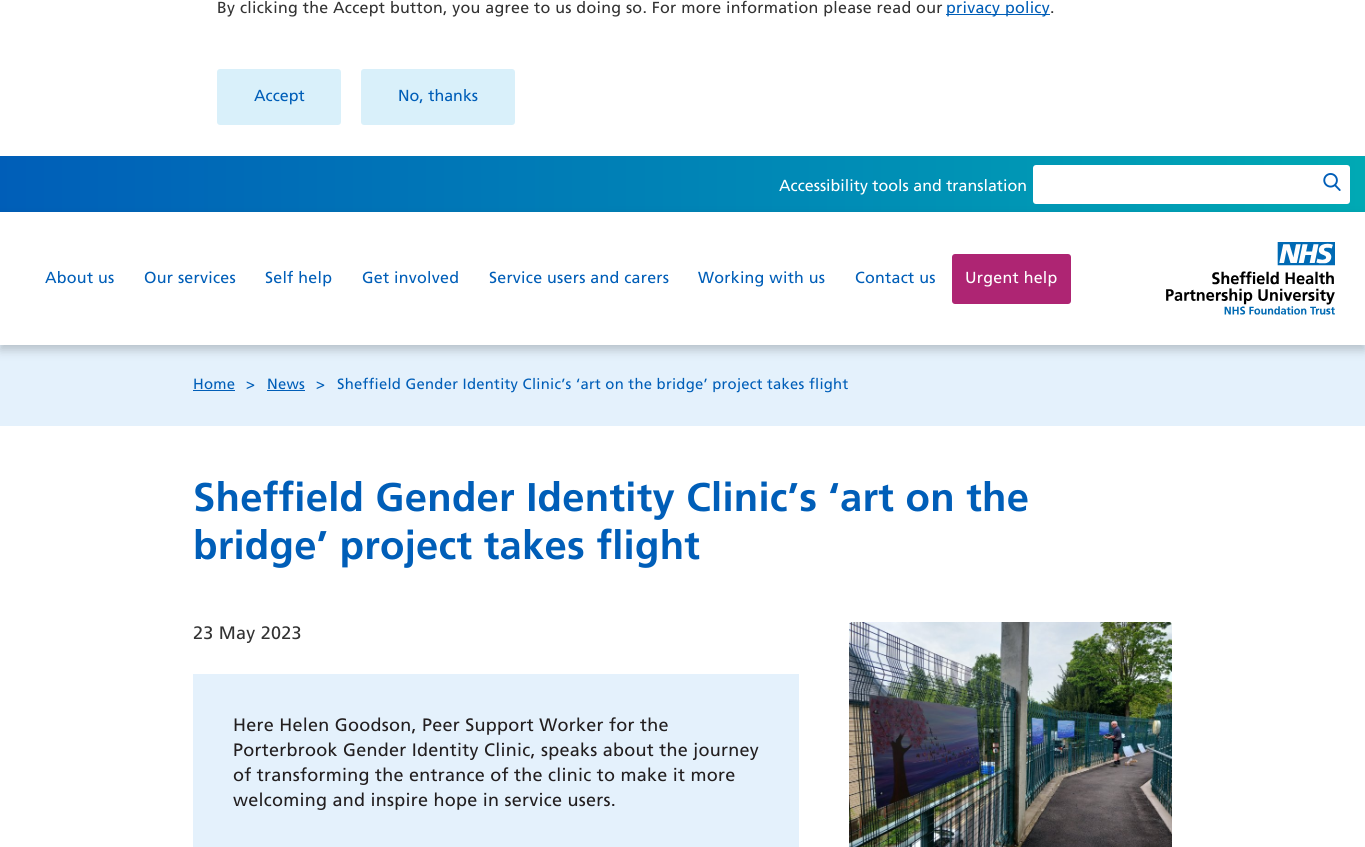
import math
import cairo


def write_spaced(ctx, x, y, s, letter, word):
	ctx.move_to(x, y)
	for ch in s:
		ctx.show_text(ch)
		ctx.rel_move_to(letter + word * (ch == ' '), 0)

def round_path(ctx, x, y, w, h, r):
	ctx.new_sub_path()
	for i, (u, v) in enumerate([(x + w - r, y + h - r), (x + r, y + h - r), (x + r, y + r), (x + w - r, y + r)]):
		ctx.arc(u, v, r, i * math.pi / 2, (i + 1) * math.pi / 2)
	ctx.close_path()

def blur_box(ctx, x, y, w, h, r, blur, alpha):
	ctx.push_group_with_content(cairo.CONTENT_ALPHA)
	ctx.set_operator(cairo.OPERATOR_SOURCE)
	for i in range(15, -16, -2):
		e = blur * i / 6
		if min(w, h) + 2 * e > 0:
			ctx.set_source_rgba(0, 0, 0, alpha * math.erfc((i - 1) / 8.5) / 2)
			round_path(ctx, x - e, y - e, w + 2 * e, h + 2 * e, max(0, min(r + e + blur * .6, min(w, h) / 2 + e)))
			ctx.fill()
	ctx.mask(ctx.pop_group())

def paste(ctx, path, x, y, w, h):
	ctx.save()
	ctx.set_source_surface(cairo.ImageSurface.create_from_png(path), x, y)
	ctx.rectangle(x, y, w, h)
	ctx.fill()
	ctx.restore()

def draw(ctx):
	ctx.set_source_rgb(1, 1, 1)
	ctx.paint()
	ctx.select_font_face('Frutiger')
	ctx.set_font_size(16)
	ctx.set_source_rgb(0.2, 0.2, 0.2)
	write_spaced(ctx, 217, 13, 'By clicking the Accept button, you agree to us doing so. For more information please read our', 0.25, 0)
	ctx.set_source_rgb(0, 0.369, 0.722)
	ctx.rectangle(946, 14, 104, 1)
	ctx.fill()
	write_spaced(ctx, 946, 13, 'privacy policy', 0.25, 0)
	ctx.set_source_rgb(0.2, 0.2, 0.2)
	write_spaced(ctx, 1050, 13, '.', 0.25, 0)
	ctx.set_source_rgb(0.851, 0.941, 0.98)
	round_path(ctx, 218, 70, 122, 54, 2)
	ctx.fill_preserve()
	ctx.stroke()
	ctx.set_source_rgb(0, 0.369, 0.722)
	ctx.move_to(254, 101)
	ctx.show_text('Accept')
	ctx.set_source_rgb(0.851, 0.941, 0.98)
	round_path(ctx, 362, 70, 152, 54, 2)
	ctx.fill_preserve()
	ctx.stroke()
	ctx.set_source_rgb(0, 0.369, 0.722)
	ctx.move_to(398, 101)
	ctx.show_text('No, thanks')
	gradient = cairo.LinearGradient(0, 184, 1365, 184)
	gradient.add_color_stop_rgba(0, 0, 0.369, 0.722, 1)
	gradient.add_color_stop_rgba(1, 0, 0.663, 0.706, 1)
	ctx.set_source(gradient)
	ctx.rectangle(0, 156, 1365, 56)
	ctx.fill()
	ctx.set_source_rgb(1, 1, 1)
	ctx.move_to(779, 191)
	ctx.show_text('Accessibility tools and translation')
	round_path(ctx, 1033, 165, 317, 39, 3)
	ctx.fill()
	paste(ctx, 'media/1.png', 1323, 173, 18, 18)
	ctx.set_source_rgb(0.894, 0.945, 0.988)
	ctx.rectangle(0, 345, 1365, 81)
	ctx.fill()
	ctx.save()
	ctx.set_fill_rule(cairo.FILL_RULE_EVEN_ODD)
	ctx.new_path()
	ctx.move_to(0, 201)
	ctx.line_to(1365, 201)
	ctx.line_to(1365, 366)
	ctx.line_to(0, 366)
	ctx.close_path()
	ctx.move_to(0, 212)
	ctx.line_to(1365, 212)
	ctx.line_to(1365, 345)
	ctx.line_to(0, 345)
	ctx.close_path()
	ctx.clip()
	ctx.set_source_rgb(0, 0, 0)
	blur_box(ctx, 0, 217, 1365, 133, 0, 5, 0.2)
	ctx.restore()
	ctx.set_source_rgb(0, 0.369, 0.722)
	for x, y, s in [
		(45, 283, 'About us'),
		(144, 283, 'Our services'),
		(265, 283, 'Self help'),
		(362, 283, 'Get involved'),
		(489, 283, 'Service users and carers'),
		(698, 283, 'Working with us'),
		(855, 283, 'Contact us'),
	]:
		write_spaced(ctx, x, y, s, 0.25, 0)
	ctx.set_source_rgb(0.682, 0.145, 0.451)
	round_path(ctx, 952, 254, 119, 50, 3)
	ctx.fill()
	ctx.set_source_rgb(1, 1, 1)
	write_spaced(ctx, 965, 283, 'Urgent help', 0.25, 0)
	paste(ctx, 'media/2.png', 1166, 242, 169, 73)
	ctx.set_font_size(14.85)
	ctx.set_source_rgb(0, 0.369, 0.722)
	write_spaced(ctx, 193, 389, 'Home', 0.25, 0)
	ctx.rectangle(193, 390, 42, 1)
	ctx.fill()
	write_spaced(ctx, 246, 389, '>', 0.25, 0)
	write_spaced(ctx, 267, 389, 'News', 0.25, 0)
	ctx.rectangle(267, 390, 38, 1)
	ctx.fill()
	write_spaced(ctx, 316, 389, '>', 0.25, 0)
	write_spaced(ctx, 337, 389, 'Sheffield Gender Identity Clinic’s ‘art on the bridge’ project takes flight', 0.25, 0)
	ctx.select_font_face('Frutiger', cairo.FONT_SLANT_NORMAL, cairo.FONT_WEIGHT_BOLD)
	ctx.set_font_size(40)
	write_spaced(ctx, 193, 511, 'Sheffield Gender Identity Clinic’s ‘art on the', 0.25, 0)
	write_spaced(ctx, 193, 559, 'bridge’ project takes flight', 0.25, 0)
	ctx.select_font_face('Frutiger')
	ctx.set_font_size(18)
	ctx.set_source_rgb(0.2, 0.2, 0.2)
	write_spaced(ctx, 193, 639, '23 May 2023', 0.25, 0)
	ctx.set_source_rgb(0.894, 0.945, 0.988)
	ctx.rectangle(193, 674, 606, 173)
	ctx.fill()
	ctx.set_source_rgb(0.137, 0.122, 0.125)
	for x, y, s in [
		(233, 731, 'Here Helen Goodson, Peer Support Worker for the'),
		(233, 756, 'Porterbrook Gender Identity Clinic, speaks about the journey'),
		(233, 781, 'of transforming the entrance of the clinic to make it more'),
		(233, 806, 'welcoming and inspire hope in service users.'),
	]:
		write_spaced(ctx, x, y, s, 0.25, 0)
	paste(ctx, 'media/3.png', 849, 622, 323, 225)


surface = cairo.ImageSurface(cairo.FORMAT_RGB24, 1365, 847)
ctx = cairo.Context(surface)
options = cairo.FontOptions()
options.set_hint_metrics(cairo.HINT_METRICS_OFF)
options.set_hint_style(cairo.HINT_STYLE_NONE)
ctx.set_font_options(options)
ctx.set_miter_limit(4)
draw(ctx)
surface.write_to_png('image.png')
